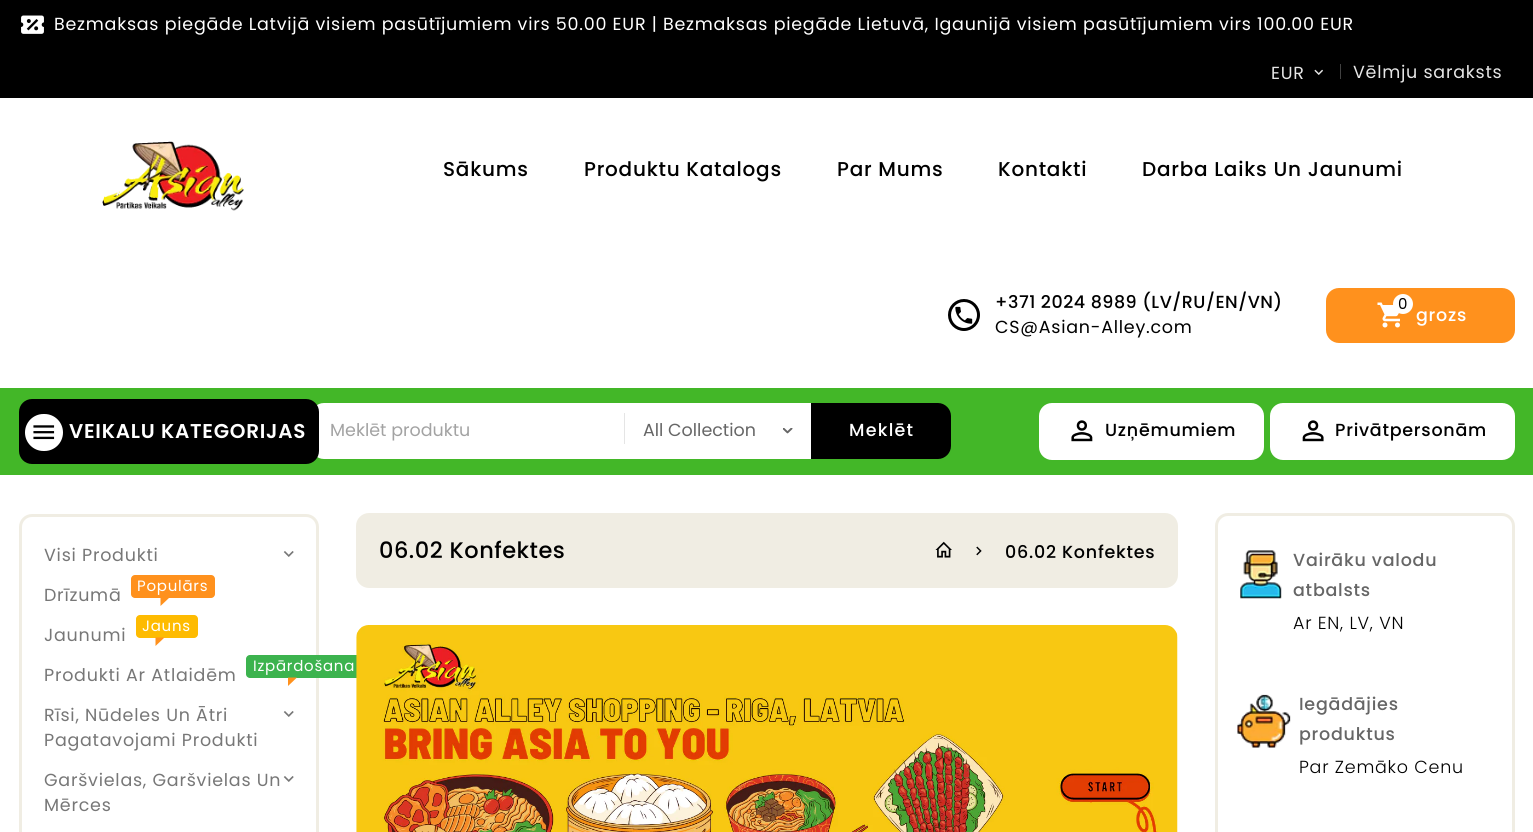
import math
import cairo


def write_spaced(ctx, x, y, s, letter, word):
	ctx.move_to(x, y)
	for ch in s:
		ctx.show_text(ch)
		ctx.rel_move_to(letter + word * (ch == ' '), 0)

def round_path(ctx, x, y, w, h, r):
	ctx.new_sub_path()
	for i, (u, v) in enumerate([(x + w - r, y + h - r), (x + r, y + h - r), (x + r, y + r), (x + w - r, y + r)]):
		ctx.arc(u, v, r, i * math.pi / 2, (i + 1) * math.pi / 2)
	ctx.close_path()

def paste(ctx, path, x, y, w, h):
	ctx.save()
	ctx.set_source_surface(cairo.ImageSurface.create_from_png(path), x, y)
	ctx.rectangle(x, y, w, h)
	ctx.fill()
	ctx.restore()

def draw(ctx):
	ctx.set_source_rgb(1, 1, 1)
	ctx.paint()
	ctx.set_source_rgb(0, 0, 0)
	ctx.rectangle(0, 0, 1533, 98)
	ctx.fill()
	paste(ctx, 'media/1.png', 21, 15, 23, 19)
	ctx.select_font_face('Poppins')
	ctx.set_font_size(17.5)
	ctx.set_source_rgb(1, 1, 1)
	write_spaced(ctx, 54, 30, 'Bezmaksas piegāde Latvijā visiem pasūtījumiem virs 50.00 EUR | Bezmaksas piegāde Lietuvā, Igaunijā visiem pasūtījumiem virs 100.00 EUR', 0.75, 0)
	ctx.set_source_rgb(0.902, 0.902, 0.902)
	write_spaced(ctx, 1271, 79, 'EUR', 0.75, 0)
	paste(ctx, 'media/2.png', 1314, 69, 9, 6)
	ctx.set_source_rgb(0.255, 0.255, 0.255)
	ctx.rectangle(1340, 64, 1, 15)
	ctx.fill()
	ctx.set_source_rgb(0.902, 0.902, 0.902)
	write_spaced(ctx, 1353, 78, 'Vēlmju saraksts', 0.75, 0)
	paste(ctx, 'media/3.png', 102, 141, 142, 70)
	ctx.select_font_face('Poppins Medium')
	ctx.set_font_size(20)
	ctx.set_source_rgb(0, 0, 0)
	for x, y, s in [
		(443, 176, 'Sākums'),
		(584, 176, 'Produktu Katalogs'),
		(837, 176, 'Par Mums'),
		(998, 176, 'Kontakti'),
		(1142, 176, 'Darba Laiks Un Jaunumi'),
	]:
		write_spaced(ctx, x, y, s, 0.75, 0)
	ctx.new_path()
	ctx.arc(964, 315, 14.5, 0, 2 * math.pi)
	ctx.set_line_width(3)
	ctx.stroke()
	paste(ctx, 'media/4.png', 955, 306, 18, 18)
	ctx.set_font_size(17.5)
	write_spaced(ctx, 995, 308, '+371 2024 8989 (LV/RU/EN/VN)', 0.5, 0)
	ctx.select_font_face('Poppins')
	write_spaced(ctx, 995, 333, 'CS@Asian-Alley.com', 0.75, 0)
	ctx.set_source_rgb(1, 0.569, 0.114)
	round_path(ctx, 1326, 288, 189, 55, 13)
	ctx.fill()
	paste(ctx, 'media/5.png', 1377, 302, 23, 26)
	ctx.set_source_rgb(1, 1, 1)
	ctx.arc(1403, 304, 10, 0, 2 * math.pi)
	ctx.fill()
	ctx.set_font_size(15)
	ctx.set_source_rgb(0, 0, 0)
	write_spaced(ctx, 1398, 309, '0', 0.75, 0)
	ctx.select_font_face('Poppins Medium')
	ctx.set_font_size(17.5)
	ctx.set_source_rgb(1, 1, 1)
	write_spaced(ctx, 1416, 321, 'grozs', 0.75, 0)
	ctx.set_source_rgb(0.263, 0.718, 0.157)
	ctx.rectangle(0, 388, 1533, 87)
	ctx.fill()
	ctx.set_source_rgb(1, 1, 1)
	round_path(ctx, 311, 403, 640, 56, 28)
	ctx.fill()
	round_path(ctx, 311, 403, 313, 56, 13)
	ctx.fill()
	ctx.select_font_face('Poppins')
	ctx.set_source_rgb(0.639, 0.639, 0.639)
	ctx.move_to(330, 436)
	ctx.show_text('Meklēt produktu')
	ctx.set_source_rgb(0.898, 0.898, 0.898)
	ctx.rectangle(624, 413, 1, 31)
	ctx.fill()
	paste(ctx, 'media/6.png', 783, 428, 10, 6)
	ctx.set_source_rgb(0.4, 0.4, 0.4)
	ctx.move_to(643, 436)
	ctx.show_text('All Collection')
	ctx.set_source_rgb(0, 0, 0)
	ctx.new_path()
	ctx.move_to(811, 403)
	ctx.line_to(938, 403)
	ctx.curve_to(945, 403, 951, 409, 951, 416)
	ctx.line_to(951, 446)
	ctx.curve_to(951, 453, 945, 459, 938, 459)
	ctx.line_to(811, 459)
	ctx.close_path()
	ctx.fill()
	ctx.select_font_face('Poppins Medium')
	ctx.set_source_rgb(1, 1, 1)
	write_spaced(ctx, 849, 436, 'Meklēt', 1.25, 0)
	round_path(ctx, 1039, 403, 225, 57, 13)
	ctx.fill()
	paste(ctx, 'media/7.png', 1071, 420, 22, 22)
	ctx.set_source_rgb(0, 0, 0)
	write_spaced(ctx, 1105, 436, 'Uzņēmumiem', 0.75, 0)
	ctx.set_source_rgb(1, 1, 1)
	round_path(ctx, 1270, 403, 245, 57, 13)
	ctx.fill()
	paste(ctx, 'media/8.png', 1302, 420, 22, 22)
	ctx.set_source_rgb(0, 0, 0)
	write_spaced(ctx, 1335, 436, 'Privātpersonām', 0.75, 0)
	round_path(ctx, 19, 399, 300, 65, 13)
	ctx.fill()
	ctx.set_source_rgb(1, 1, 1)
	round_path(ctx, 25, 414, 38, 37, 18.5)
	ctx.fill()
	paste(ctx, 'media/9.png', 33, 425, 22, 15)
	ctx.select_font_face('Poppins SemiBold')
	ctx.set_font_size(20)
	write_spaced(ctx, 69, 438, 'VEIKALU KATEGORIJAS', 0.75, 0)
	round_path(ctx, 20.5, 515.5, 297, 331, 11.5)
	ctx.set_source_rgb(0.941, 0.929, 0.89)
	ctx.stroke()
	ctx.select_font_face('Poppins')
	ctx.set_font_size(17.5)
	ctx.set_source_rgb(0.467, 0.467, 0.467)
	write_spaced(ctx, 44, 561, 'Visi Produkti', 0.75, 0)
	paste(ctx, 'media/10.png', 283, 551, 11, 6)
	write_spaced(ctx, 44, 601, 'Drīzumā', 0.75, 0)
	ctx.set_source_rgb(1, 0.569, 0.114)
	round_path(ctx, 131, 575, 84, 23, 4)
	ctx.fill()
	ctx.set_font_size(15)
	ctx.set_source_rgb(1, 1, 1)
	write_spaced(ctx, 137, 591, 'Populārs', 0.75, 0)
	ctx.set_source_rgb(1, 0.569, 0.114)
	ctx.new_path()
	ctx.move_to(160.5, 597.5)
	ctx.line_to(169.5, 597.5)
	ctx.line_to(160.5, 606)
	ctx.close_path()
	ctx.fill()
	ctx.set_font_size(17.5)
	ctx.set_source_rgb(0.467, 0.467, 0.467)
	write_spaced(ctx, 44, 641, 'Jaunumi', 0.75, 0)
	ctx.set_source_rgb(0.996, 0.733, 0.004)
	round_path(ctx, 136, 615, 62, 23, 4)
	ctx.fill()
	ctx.set_font_size(15)
	ctx.set_source_rgb(1, 1, 1)
	write_spaced(ctx, 142, 631, 'Jauns', 0.75, 0)
	ctx.set_source_rgb(1, 0.569, 0.114)
	ctx.new_path()
	ctx.move_to(155.5, 637.5)
	ctx.line_to(164.5, 637.5)
	ctx.line_to(155.5, 646)
	ctx.close_path()
	ctx.fill()
	ctx.set_font_size(17.5)
	ctx.set_source_rgb(0.467, 0.467, 0.467)
	write_spaced(ctx, 44, 681, 'Produkti Ar Atlaidēm', 0.75, 0)
	ctx.set_source_rgb(0.235, 0.702, 0.306)
	round_path(ctx, 246, 655, 115, 23, 4)
	ctx.fill()
	ctx.set_font_size(15)
	ctx.set_source_rgb(1, 1, 1)
	write_spaced(ctx, 253, 671, 'Izpārdošana', 0.75, 0)
	ctx.set_source_rgb(1, 0.569, 0.114)
	ctx.new_path()
	ctx.move_to(288, 677.5)
	ctx.line_to(297, 677.5)
	ctx.line_to(288, 686)
	ctx.close_path()
	ctx.fill()
	ctx.set_font_size(17.5)
	ctx.set_source_rgb(0.467, 0.467, 0.467)
	write_spaced(ctx, 44, 721, 'Rīsi, Nūdeles Un Ātri', 0.75, 0)
	paste(ctx, 'media/10.png', 283, 711, 11, 6)
	write_spaced(ctx, 44, 746, 'Pagatavojami Produkti', 0.75, 0)
	write_spaced(ctx, 44, 786, 'Garšvielas, Garšvielas Un', 0.75, 0)
	paste(ctx, 'media/10.png', 283, 776, 11, 6)
	write_spaced(ctx, 44, 811, 'Mērces', 0.75, 0)
	ctx.set_source_rgb(0.941, 0.929, 0.89)
	round_path(ctx, 356, 513, 822, 75, 13)
	ctx.fill()
	ctx.select_font_face('Poppins Medium')
	ctx.set_font_size(22.5)
	ctx.set_source_rgb(0, 0, 0)
	write_spaced(ctx, 379, 558, '06.02 Konfektes', 0.5, 0)
	paste(ctx, 'media/11.png', 935, 541, 17, 17)
	paste(ctx, 'media/12.png', 976, 546, 6, 10)
	ctx.set_font_size(17.5)
	write_spaced(ctx, 1005, 558, '06.02 Konfektes', 0.75, 0)
	paste(ctx, 'media/13.png', 356, 625, 822, 207)
	round_path(ctx, 1216.5, 514.5, 297, 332, 11.5)
	ctx.set_source_rgb(0.941, 0.929, 0.89)
	ctx.stroke()
	paste(ctx, 'media/14.png', 1240, 550, 42, 49)
	ctx.set_source_rgb(0.4, 0.4, 0.4)
	write_spaced(ctx, 1293, 566, 'Vairāku valodu', 0.75, 0)
	write_spaced(ctx, 1293, 596, 'atbalsts', 0.75, 0)
	ctx.select_font_face('Poppins Light')
	ctx.set_source_rgb(0, 0, 0)
	write_spaced(ctx, 1293, 629, 'Ar EN, LV, VN', 0.75, 0)
	paste(ctx, 'media/15.png', 1237, 694, 54, 54)
	ctx.select_font_face('Poppins Medium')
	ctx.set_source_rgb(0.4, 0.4, 0.4)
	write_spaced(ctx, 1299, 710, 'Iegādājies', 0.75, 0)
	write_spaced(ctx, 1299, 740, 'produktus', 0.75, 0)
	ctx.select_font_face('Poppins Light')
	ctx.set_source_rgb(0, 0, 0)
	write_spaced(ctx, 1299, 773, 'Par Zemāko Cenu', 0.75, 0)


surface = cairo.ImageSurface(cairo.FORMAT_RGB24, 1533, 832)
ctx = cairo.Context(surface)
options = cairo.FontOptions()
options.set_hint_metrics(cairo.HINT_METRICS_OFF)
options.set_hint_style(cairo.HINT_STYLE_NONE)
ctx.set_font_options(options)
ctx.set_miter_limit(4)
draw(ctx)
surface.write_to_png('image.png')
